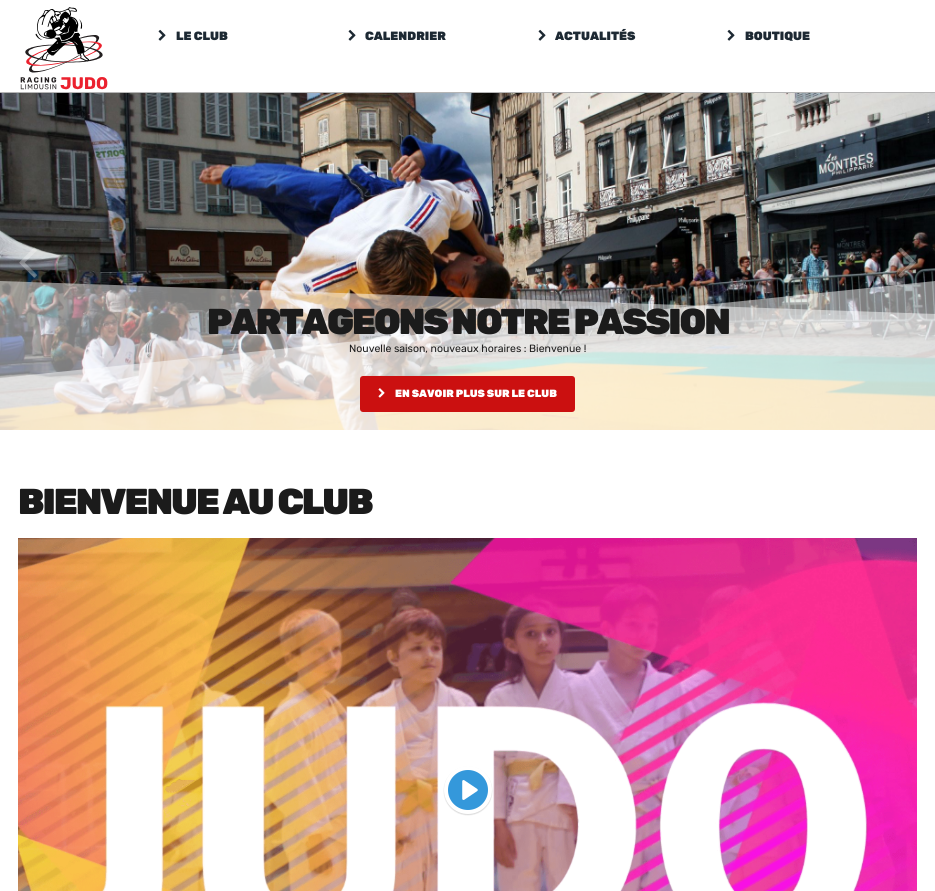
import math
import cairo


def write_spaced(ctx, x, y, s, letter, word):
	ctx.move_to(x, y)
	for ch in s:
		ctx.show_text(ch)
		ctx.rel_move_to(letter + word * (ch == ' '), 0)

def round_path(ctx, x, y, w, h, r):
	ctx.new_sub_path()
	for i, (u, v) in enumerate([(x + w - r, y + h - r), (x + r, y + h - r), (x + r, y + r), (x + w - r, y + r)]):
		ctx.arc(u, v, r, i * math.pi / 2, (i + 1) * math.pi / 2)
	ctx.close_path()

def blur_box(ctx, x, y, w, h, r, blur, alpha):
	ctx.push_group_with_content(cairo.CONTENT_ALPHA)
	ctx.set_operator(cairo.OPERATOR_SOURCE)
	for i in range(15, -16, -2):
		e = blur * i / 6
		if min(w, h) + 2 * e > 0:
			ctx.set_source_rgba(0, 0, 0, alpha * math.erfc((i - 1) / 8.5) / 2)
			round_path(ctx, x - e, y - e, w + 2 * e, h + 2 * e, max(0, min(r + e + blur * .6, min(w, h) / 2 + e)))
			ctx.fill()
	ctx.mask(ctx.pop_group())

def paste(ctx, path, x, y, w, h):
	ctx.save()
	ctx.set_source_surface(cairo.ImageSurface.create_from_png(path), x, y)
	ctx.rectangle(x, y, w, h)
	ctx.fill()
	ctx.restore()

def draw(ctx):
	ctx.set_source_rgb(1, 1, 1)
	ctx.paint()
	ctx.set_source_rgb(0.71, 0.71, 0.71)
	ctx.rectangle(0, 92, 935, 1)
	ctx.fill()
	paste(ctx, 'media/1.png', 20, 7, 88, 83)
	paste(ctx, 'media/2.png', 158, 29, 8, 12)
	ctx.select_font_face('Rubik Black')
	ctx.set_font_size(12)
	ctx.set_source_rgb(0.114, 0.161, 0.2)
	ctx.move_to(176, 40)
	ctx.show_text('LE CLUB')
	paste(ctx, 'media/2.png', 348, 29, 8, 12)
	ctx.move_to(365, 40)
	ctx.show_text('CALENDRIER')
	paste(ctx, 'media/2.png', 538, 29, 8, 12)
	ctx.move_to(555, 40)
	ctx.show_text('ACTUALITÉS')
	paste(ctx, 'media/2.png', 727, 29, 8, 12)
	ctx.move_to(745, 40)
	ctx.show_text('BOUTIQUE')
	paste(ctx, 'media/5.png', 0, 93, 935, 337)
	paste(ctx, 'media/3.png', 19, 247, 18, 31)
	paste(ctx, 'media/4.png', 898, 247, 18, 31)
	ctx.set_source_rgba(1, 1, 1, 0.49)
	ctx.new_path()
	ctx.move_to(935, 314)
	ctx.line_to(0, 281)
	ctx.line_to(0, 430)
	ctx.line_to(935, 430)
	ctx.close_path()
	ctx.fill()
	ctx.set_source_rgba(1, 1, 1, 0.5)
	ctx.new_path()
	ctx.move_to(0, 378)
	ctx.line_to(935, 281)
	ctx.line_to(935, 430)
	ctx.line_to(0, 430)
	ctx.close_path()
	ctx.fill()
	ctx.set_font_size(36)
	ctx.set_source_rgb(0.106, 0.106, 0.106)
	write_spaced(ctx, 207, 334, 'PARTAGEONS NOTRE PASSION', -2, 0)
	ctx.select_font_face('Rubik')
	ctx.set_font_size(10.5)
	ctx.move_to(349, 352)
	ctx.show_text('Nouvelle saison, nouveaux horaires : Bienvenue !')
	ctx.set_source_rgb(0.796, 0.063, 0.063)
	round_path(ctx, 360, 376, 215, 36, 3)
	ctx.fill()
	paste(ctx, 'media/6.png', 378, 388, 7, 10)
	ctx.select_font_face('Rubik Black')
	ctx.set_source_rgb(1, 1, 1)
	ctx.move_to(395, 397)
	ctx.show_text('EN SAVOIR PLUS SUR LE CLUB')
	ctx.set_font_size(36)
	ctx.set_source_rgb(0.106, 0.106, 0.106)
	write_spaced(ctx, 18, 514, 'BIENVENUE AU CLUB', -2, 0)
	paste(ctx, 'media/7.png', 18, 538, 899, 353)
	ctx.set_source_rgb(0, 0, 0)
	blur_box(ctx, 444, 767, 48, 48, 24, 0.5, 0.15)
	ctx.set_source_rgb(0.204, 0.596, 0.859)
	ctx.arc(468, 790, 22, 0, 2 * math.pi)
	ctx.fill_preserve()
	ctx.set_source_rgb(1, 1, 1)
	ctx.set_line_width(4)
	ctx.stroke()
	paste(ctx, 'media/8.png', 462, 780, 16, 20)


surface = cairo.ImageSurface(cairo.FORMAT_RGB24, 935, 891)
ctx = cairo.Context(surface)
options = cairo.FontOptions()
options.set_hint_metrics(cairo.HINT_METRICS_OFF)
options.set_hint_style(cairo.HINT_STYLE_NONE)
ctx.set_font_options(options)
ctx.set_miter_limit(4)
draw(ctx)
surface.write_to_png('image.png')
